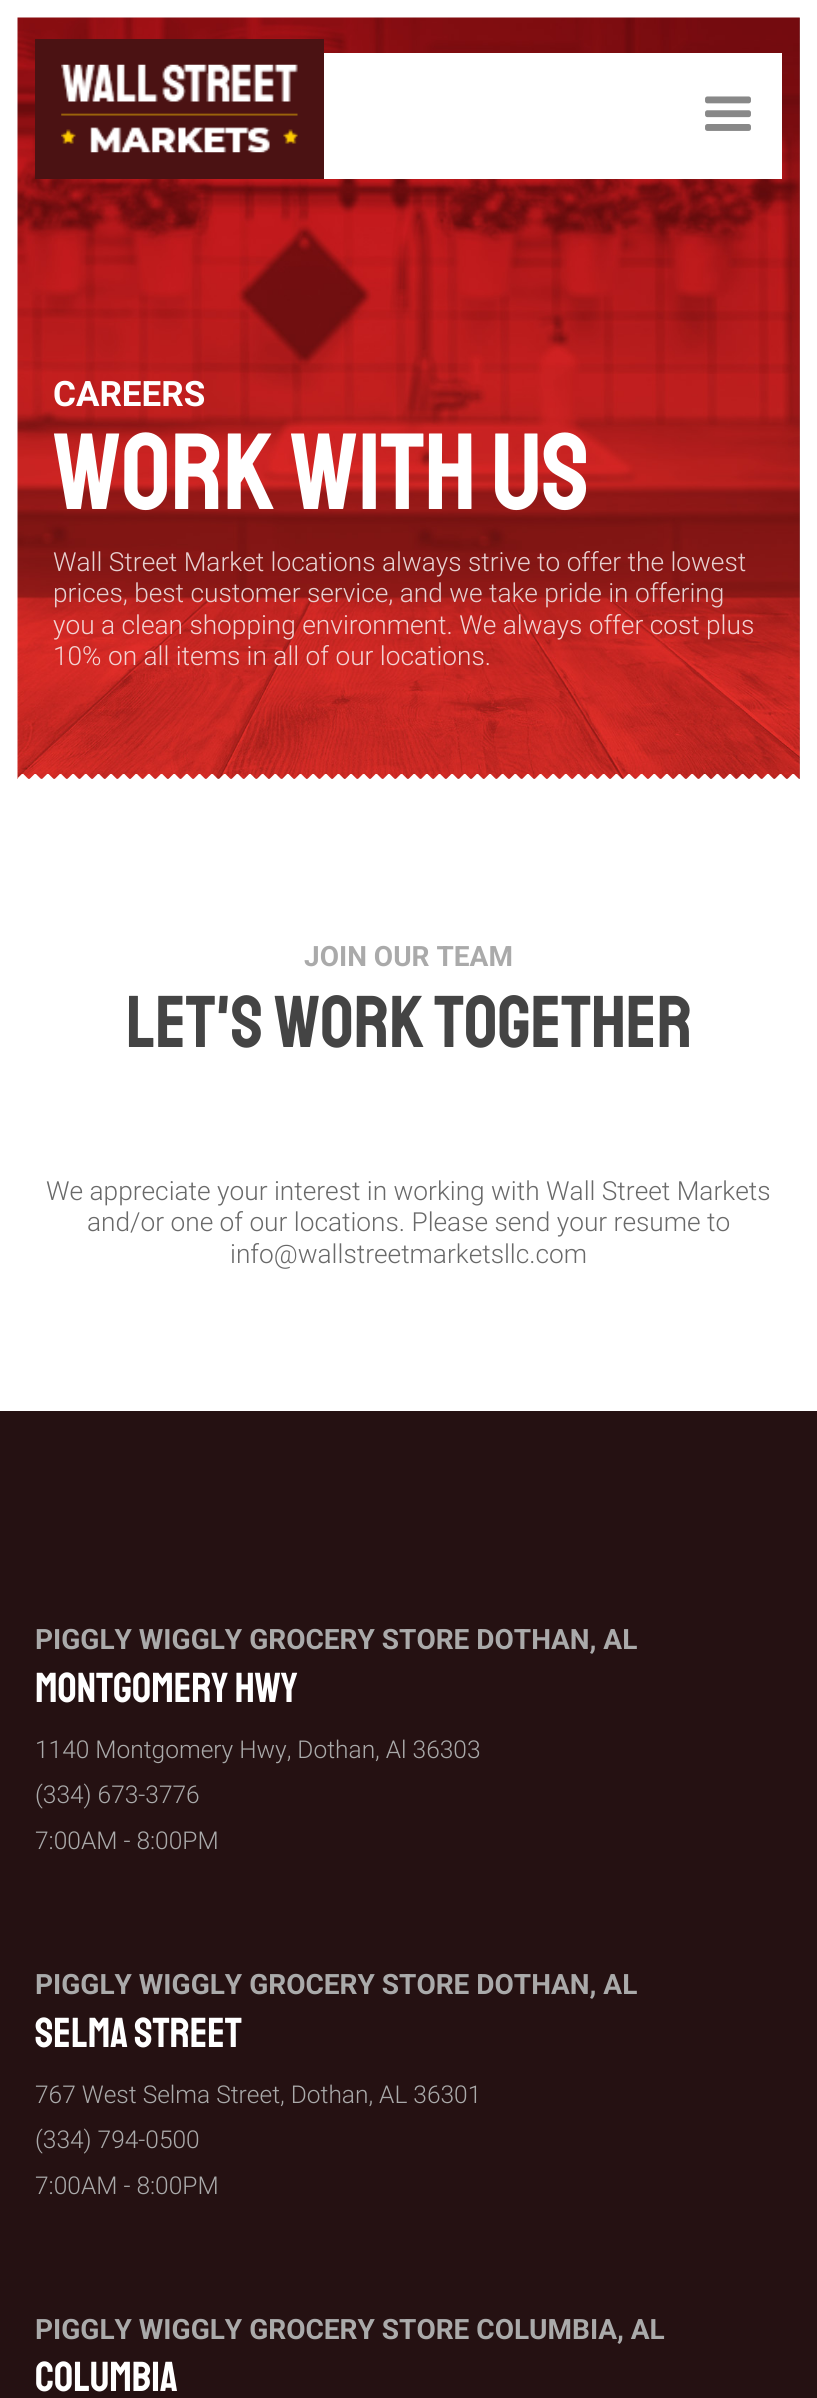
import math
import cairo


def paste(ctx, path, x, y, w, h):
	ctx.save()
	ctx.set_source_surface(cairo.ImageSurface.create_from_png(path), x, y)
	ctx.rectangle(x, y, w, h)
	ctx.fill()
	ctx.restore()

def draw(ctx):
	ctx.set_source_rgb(1, 1, 1)
	ctx.paint()
	ctx.set_source_rgb(0.667, 0.667, 0.667)
	ctx.rectangle(27, 18, 773, 761)
	ctx.fill()
	paste(ctx, 'media/3.png', 17, 17, 783, 762)
	ctx.set_source_rgb(1, 1, 1)
	ctx.rectangle(324, 53, 458, 126)
	ctx.fill()
	ctx.set_source_rgb(0.294, 0.071, 0.078)
	ctx.rectangle(35, 39, 289, 140)
	ctx.fill()
	paste(ctx, 'media/1.png', 61, 64, 237, 89)
	paste(ctx, 'media/2.png', 705, 96, 46, 35)
	ctx.select_font_face('Roboto', cairo.FONT_SLANT_NORMAL, cairo.FONT_WEIGHT_BOLD)
	ctx.set_font_size(35)
	ctx.set_source_rgb(1, 1, 1)
	ctx.move_to(53, 406)
	ctx.show_text('CAREERS')
	ctx.select_font_face('Staatliches')
	ctx.set_font_size(108.5)
	ctx.move_to(53, 509)
	ctx.show_text('Work with us')
	ctx.select_font_face('Roboto Light')
	ctx.set_font_size(26.25)
	ctx.set_source_rgb(0.906, 0.816, 0.816)
	ctx.move_to(53, 571)
	ctx.show_text('Wall Street Market locations always strive to offer the lowest')
	ctx.move_to(53, 602)
	ctx.show_text('prices, best customer service, and we take pride in offering')
	ctx.set_source_rgb(0.953, 0.827, 0.827)
	ctx.move_to(53, 634)
	ctx.show_text('you a clean shopping environment. We always offer cost plus')
	ctx.move_to(53, 665)
	ctx.show_text('10% on all items in all of our locations.')
	paste(ctx, 'media/4.png', 18, 774, 781, 5)
	ctx.select_font_face('Roboto', cairo.FONT_SLANT_NORMAL, cairo.FONT_WEIGHT_BOLD)
	ctx.set_font_size(28)
	ctx.set_source_rgb(0.667, 0.667, 0.667)
	ctx.move_to(304, 966)
	ctx.show_text('JOIN OUR TEAM')
	ctx.select_font_face('Staatliches')
	ctx.set_font_size(73.5)
	ctx.set_source_rgb(0.267, 0.267, 0.267)
	ctx.move_to(126, 1047)
	ctx.show_text('Let\'s Work Together')
	ctx.select_font_face('Roboto Light')
	ctx.set_font_size(26.25)
	ctx.set_source_rgb(0.412, 0.412, 0.412)
	for x, y, s in [
		(46, 1200, 'We appreciate your interest in working with Wall Street Markets'),
		(87, 1231, 'and/or one of our locations. Please send your resume to'),
		(230, 1263, 'info@wallstreetmarketsllc.com'),
	]:
		ctx.move_to(x, y)
		ctx.show_text(s)
	ctx.set_source_rgb(0.145, 0.067, 0.071)
	ctx.rectangle(0, 1411, 817, 987)
	ctx.fill()
	ctx.select_font_face('Roboto', cairo.FONT_SLANT_NORMAL, cairo.FONT_WEIGHT_BOLD)
	ctx.set_font_size(28)
	ctx.set_source_rgb(0.667, 0.667, 0.667)
	ctx.move_to(35, 1649)
	ctx.show_text('PIGGLY WIGGLY GROCERY STORE DOTHAN, AL')
	ctx.select_font_face('Staatliches')
	ctx.set_font_size(42)
	ctx.set_source_rgb(1, 1, 1)
	ctx.move_to(35, 1702)
	ctx.show_text('Montgomery HWY')
	ctx.select_font_face('Roboto Light')
	ctx.set_font_size(24.5)
	ctx.set_source_rgb(0.667, 0.667, 0.667)
	for x, y, s in [
		(35, 1758, '1140 Montgomery Hwy, Dothan, Al 36303'),
		(35, 1803, '(334) 673-3776'),
		(35, 1849, '7:00AM - 8:00PM'),
	]:
		ctx.move_to(x, y)
		ctx.show_text(s)
	ctx.select_font_face('Roboto', cairo.FONT_SLANT_NORMAL, cairo.FONT_WEIGHT_BOLD)
	ctx.set_font_size(28)
	ctx.move_to(35, 1994)
	ctx.show_text('PIGGLY WIGGLY GROCERY STORE DOTHAN, AL')
	ctx.select_font_face('Staatliches')
	ctx.set_font_size(42)
	ctx.set_source_rgb(1, 1, 1)
	ctx.move_to(35, 2047)
	ctx.show_text('Selma Street')
	ctx.select_font_face('Roboto Light')
	ctx.set_font_size(24.5)
	ctx.set_source_rgb(0.667, 0.667, 0.667)
	for x, y, s in [
		(35, 2103, '767 West Selma Street, Dothan, AL 36301'),
		(35, 2148, '(334) 794-0500'),
		(35, 2194, '7:00AM - 8:00PM'),
	]:
		ctx.move_to(x, y)
		ctx.show_text(s)
	ctx.select_font_face('Roboto', cairo.FONT_SLANT_NORMAL, cairo.FONT_WEIGHT_BOLD)
	ctx.set_font_size(28)
	ctx.move_to(35, 2339)
	ctx.show_text('PIGGLY WIGGLY GROCERY STORE COLUMBIA, AL')
	ctx.select_font_face('Staatliches')
	ctx.set_font_size(42)
	ctx.set_source_rgb(1, 1, 1)
	ctx.move_to(35, 2391)
	ctx.show_text('Columbia')


surface = cairo.ImageSurface(cairo.FORMAT_RGB24, 817, 2398)
ctx = cairo.Context(surface)
options = cairo.FontOptions()
options.set_hint_metrics(cairo.HINT_METRICS_OFF)
options.set_hint_style(cairo.HINT_STYLE_NONE)
ctx.set_font_options(options)
ctx.set_miter_limit(4)
draw(ctx)
surface.write_to_png('image.png')
